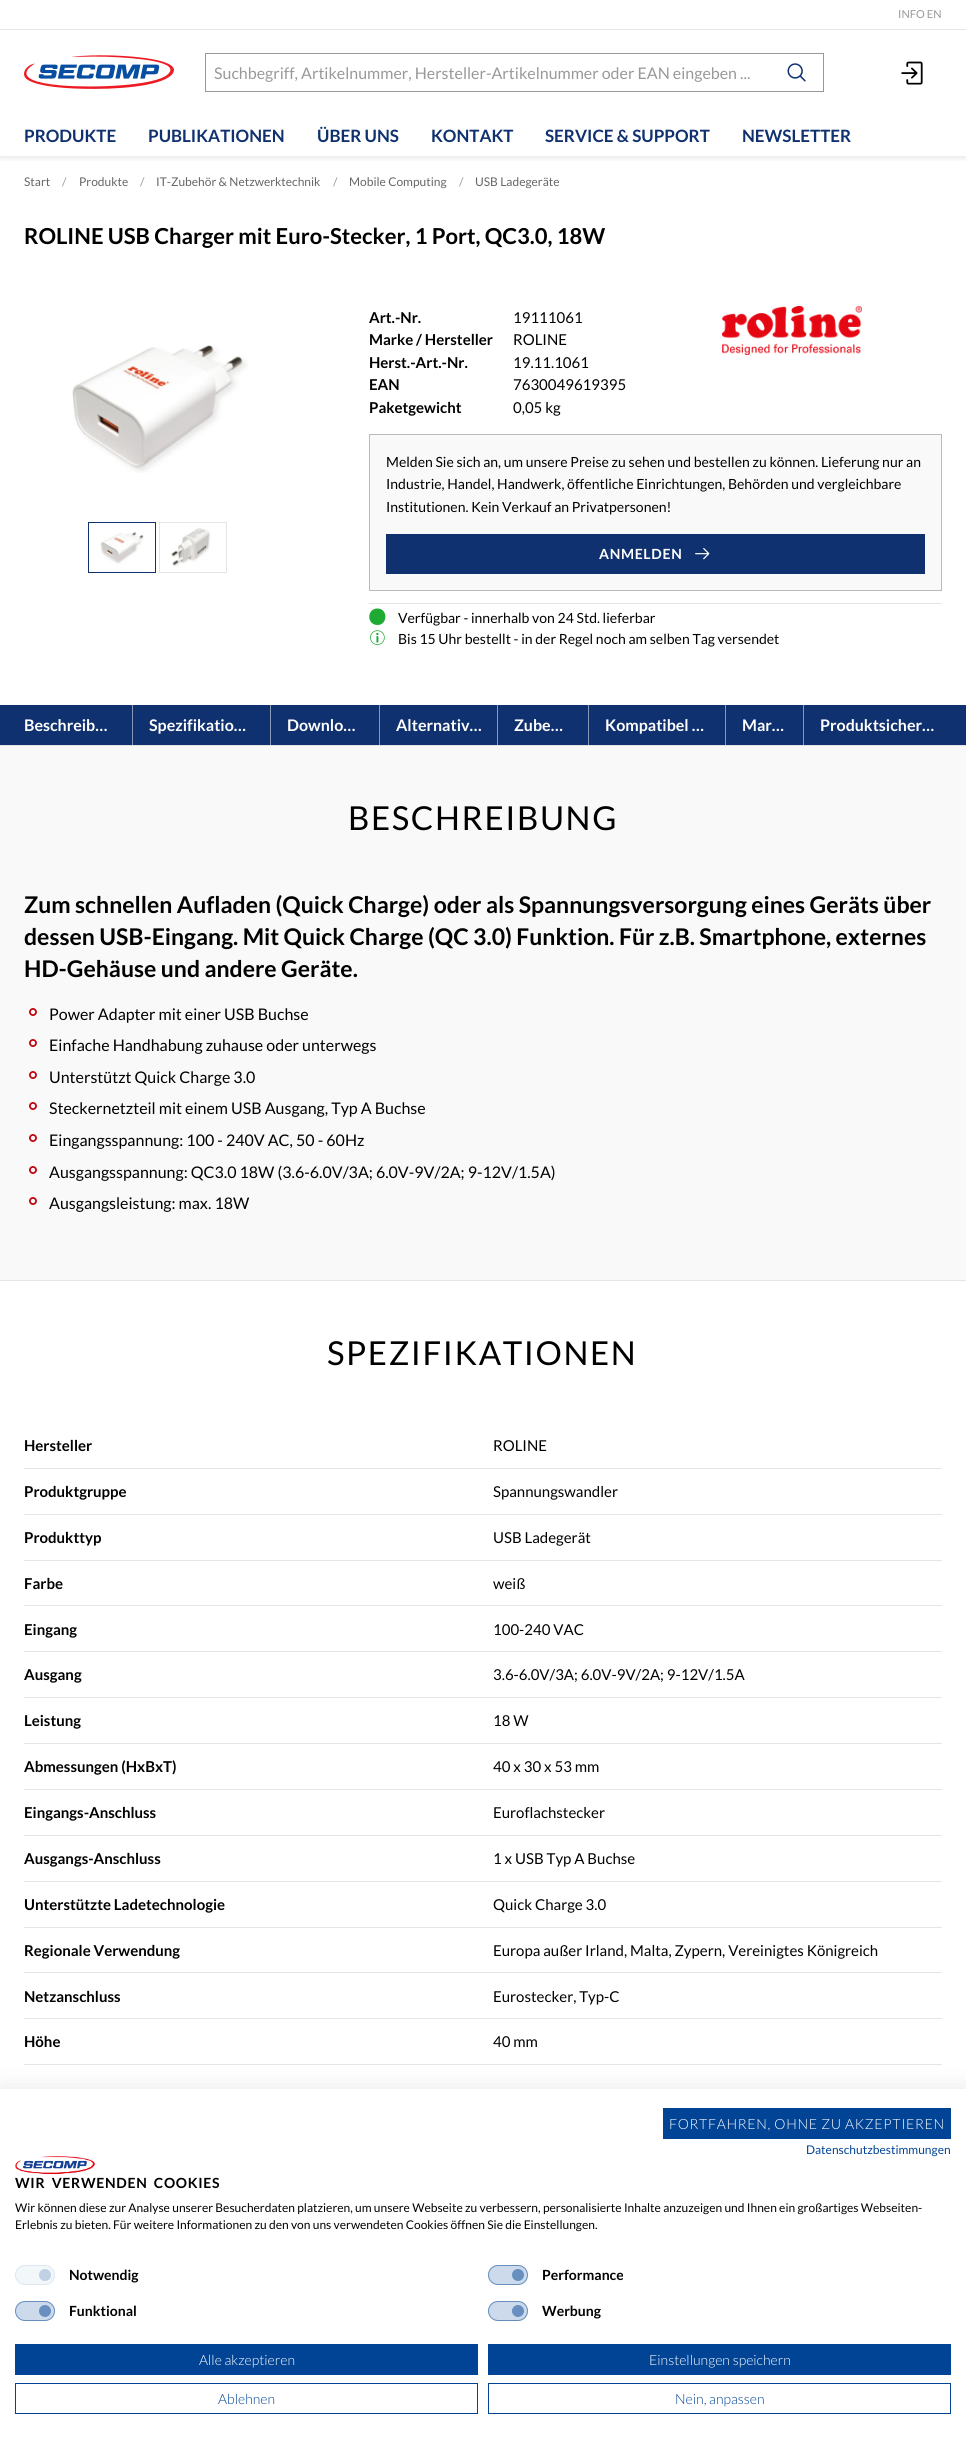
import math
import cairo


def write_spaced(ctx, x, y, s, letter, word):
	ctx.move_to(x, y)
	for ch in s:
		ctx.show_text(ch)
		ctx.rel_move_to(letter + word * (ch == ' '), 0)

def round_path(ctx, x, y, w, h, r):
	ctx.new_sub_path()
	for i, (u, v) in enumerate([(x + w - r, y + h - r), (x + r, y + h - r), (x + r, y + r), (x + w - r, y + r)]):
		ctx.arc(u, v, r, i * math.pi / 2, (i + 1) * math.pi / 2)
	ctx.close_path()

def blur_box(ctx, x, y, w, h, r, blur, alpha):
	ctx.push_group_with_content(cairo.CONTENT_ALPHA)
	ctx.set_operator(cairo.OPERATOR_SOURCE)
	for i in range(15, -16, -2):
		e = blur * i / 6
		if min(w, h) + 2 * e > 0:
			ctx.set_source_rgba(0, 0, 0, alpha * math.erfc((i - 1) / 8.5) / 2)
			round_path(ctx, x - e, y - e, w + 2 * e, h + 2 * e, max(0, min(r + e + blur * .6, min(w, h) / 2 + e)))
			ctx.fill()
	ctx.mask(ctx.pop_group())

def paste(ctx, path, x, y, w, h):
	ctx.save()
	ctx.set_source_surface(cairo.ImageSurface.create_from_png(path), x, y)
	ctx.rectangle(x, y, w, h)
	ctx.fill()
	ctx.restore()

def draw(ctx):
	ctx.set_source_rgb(1, 1, 1)
	ctx.paint()
	ctx.save()
	ctx.rectangle(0, 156, 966, 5)
	ctx.clip()
	ctx.set_source_rgb(0.004, 0.008, 0.008)
	blur_box(ctx, 0, 2, 966, 156, 0, 3, 0.1)
	ctx.restore()
	ctx.set_source_rgb(0.898, 0.898, 0.898)
	ctx.rectangle(0, 29, 966, 1)
	ctx.fill()
	ctx.select_font_face('Lato')
	ctx.set_font_size(11)
	ctx.set_source_rgb(0.6, 0.6, 0.6)
	ctx.move_to(898, 18)
	ctx.show_text('INFO EN')
	paste(ctx, 'media/1.png', 24, 55, 150, 34)
	ctx.rectangle(205.5, 53.5, 618, 38)
	ctx.set_line_width(1)
	ctx.stroke()
	ctx.set_font_size(16)
	ctx.move_to(214, 79)
	ctx.show_text('Suchbegriff, Artikelnummer, Hersteller-Artikelnummer oder EAN eingeben ...')
	paste(ctx, 'media/2.png', 787, 63, 19, 19)
	paste(ctx, 'media/3.png', 901, 61, 22, 24)
	ctx.select_font_face('Lato', cairo.FONT_SLANT_NORMAL, cairo.FONT_WEIGHT_BOLD)
	ctx.set_font_size(17)
	ctx.set_source_rgb(0.063, 0.192, 0.435)
	for x, y, s in [
		(24, 142, 'PRODUKTE'),
		(148, 142, 'PUBLIKATIONEN'),
		(317, 142, 'ÜBER UNS'),
		(431, 142, 'KONTAKT'),
		(545, 142, 'SERVICE & SUPPORT'),
		(742, 142, 'NEWSLETTER'),
	]:
		ctx.move_to(x, y)
		ctx.show_text(s)
	ctx.select_font_face('Lato')
	ctx.set_font_size(12)
	ctx.set_source_rgb(0.4, 0.4, 0.4)
	ctx.move_to(24, 186)
	ctx.show_text('Start')
	ctx.set_source_rgb(0.6, 0.6, 0.6)
	ctx.move_to(62, 186)
	ctx.show_text('/')
	ctx.set_source_rgb(0.4, 0.4, 0.4)
	ctx.move_to(79, 186)
	ctx.show_text('Produkte')
	ctx.set_source_rgb(0.6, 0.6, 0.6)
	ctx.move_to(140, 186)
	ctx.show_text('/')
	ctx.set_source_rgb(0.4, 0.4, 0.4)
	ctx.move_to(156, 186)
	ctx.show_text('IT-Zubehör & Netzwerktechnik')
	ctx.set_source_rgb(0.6, 0.6, 0.6)
	ctx.move_to(333, 186)
	ctx.show_text('/')
	ctx.set_source_rgb(0.4, 0.4, 0.4)
	ctx.move_to(349, 186)
	ctx.show_text('Mobile Computing')
	ctx.set_source_rgb(0.6, 0.6, 0.6)
	ctx.move_to(459, 186)
	ctx.show_text('/')
	ctx.set_source_rgb(0.4, 0.4, 0.4)
	ctx.move_to(475, 186)
	ctx.show_text('USB Ladegeräte')
	ctx.select_font_face('Lato', cairo.FONT_SLANT_NORMAL, cairo.FONT_WEIGHT_BOLD)
	ctx.set_font_size(22)
	ctx.set_source_rgb(0, 0, 0)
	ctx.move_to(24, 244)
	ctx.show_text('ROLINE USB Charger mit Euro-Stecker, 1 Port, QC3.0, 18W')
	paste(ctx, 'media/4.png', 72, 345, 176, 128)
	ctx.rectangle(88.5, 522.5, 67, 50)
	ctx.set_source_rgb(0.063, 0.192, 0.435)
	ctx.stroke()
	paste(ctx, 'media/5.png', 100, 532, 44, 32)
	ctx.rectangle(159.5, 522.5, 67, 50)
	ctx.set_source_rgb(0.898, 0.898, 0.898)
	ctx.stroke()
	paste(ctx, 'media/6.png', 171, 528, 40, 39)
	ctx.set_font_size(15)
	ctx.set_source_rgb(0, 0, 0)
	ctx.move_to(369, 323)
	ctx.show_text('Art.-Nr.')
	ctx.select_font_face('Lato')
	ctx.move_to(513, 323)
	ctx.show_text('19111061')
	ctx.select_font_face('Lato', cairo.FONT_SLANT_NORMAL, cairo.FONT_WEIGHT_BOLD)
	ctx.move_to(369, 345)
	ctx.show_text('Marke / Hersteller')
	ctx.select_font_face('Lato')
	ctx.move_to(513, 345)
	ctx.show_text('ROLINE')
	ctx.select_font_face('Lato', cairo.FONT_SLANT_NORMAL, cairo.FONT_WEIGHT_BOLD)
	ctx.move_to(369, 368)
	ctx.show_text('Herst.-Art.-Nr.')
	ctx.select_font_face('Lato')
	ctx.move_to(513, 368)
	ctx.show_text('19.11.1061')
	ctx.select_font_face('Lato', cairo.FONT_SLANT_NORMAL, cairo.FONT_WEIGHT_BOLD)
	ctx.move_to(369, 390)
	ctx.show_text('EAN')
	ctx.select_font_face('Lato')
	ctx.move_to(513, 390)
	ctx.show_text('7630049619395')
	ctx.select_font_face('Lato', cairo.FONT_SLANT_NORMAL, cairo.FONT_WEIGHT_BOLD)
	ctx.move_to(369, 413)
	ctx.show_text('Paketgewicht')
	ctx.select_font_face('Lato')
	ctx.move_to(513, 413)
	ctx.show_text('0,05 kg')
	paste(ctx, 'media/7.png', 722, 306, 140, 49)
	ctx.set_source_rgb(0.976, 0.976, 0.976)
	ctx.rectangle(369.5, 434.5, 572, 156)
	ctx.fill_preserve()
	ctx.set_source_rgb(0.733, 0.733, 0.733)
	ctx.stroke()
	ctx.set_font_size(14)
	ctx.set_source_rgb(0, 0, 0)
	for x, y, s in [
		(386, 467, 'Melden Sie sich an, um unsere Preise zu sehen und bestellen zu können. Lieferung nur an'),
		(386, 489, 'Industrie, Handel, Handwerk, öffentliche Einrichtungen, Behörden und vergleichbare'),
		(386, 512, 'Institutionen. Kein Verkauf an Privatpersonen!'),
	]:
		ctx.move_to(x, y)
		ctx.show_text(s)
	ctx.set_source_rgb(0.063, 0.192, 0.435)
	ctx.rectangle(386, 534, 539, 40)
	ctx.fill()
	ctx.select_font_face('Lato', cairo.FONT_SLANT_NORMAL, cairo.FONT_WEIGHT_BOLD)
	ctx.set_source_rgb(1, 1, 1)
	write_spaced(ctx, 599, 559, 'ANMELDEN', 0.7, 0)
	paste(ctx, 'media/8.png', 695, 548, 15, 12)
	ctx.set_source_rgb(0.898, 0.898, 0.898)
	ctx.rectangle(369, 603, 573, 1)
	ctx.fill()
	ctx.set_source_rgb(0.122, 0.667, 0.2)
	ctx.new_path()
	ctx.move_to(377.5, 608.5)
	ctx.curve_to(366.5, 608.5, 366.5, 625, 377.5, 625)
	ctx.curve_to(388, 625, 388, 608.5, 377.5, 608.5)
	ctx.close_path()
	ctx.fill()
	ctx.select_font_face('Lato')
	ctx.set_source_rgb(0, 0, 0)
	ctx.move_to(398, 623)
	ctx.show_text('Verfügbar - innerhalb von 24 Std. lieferbar')
	paste(ctx, 'media/9.png', 370, 630, 15, 15)
	ctx.move_to(398, 644)
	ctx.show_text('Bis 15 Uhr bestellt - in der Regel noch am selben Tag versendet')
	ctx.set_source_rgb(0.063, 0.192, 0.435)
	ctx.rectangle(0, 705, 966, 40)
	ctx.fill()
	ctx.select_font_face('Lato', cairo.FONT_SLANT_NORMAL, cairo.FONT_WEIGHT_BOLD)
	ctx.set_font_size(16)
	ctx.set_source_rgb(1, 1, 1)
	ctx.move_to(24, 731)
	ctx.show_text('Beschreib…')
	ctx.set_source_rgb(0.533, 0.596, 0.718)
	ctx.rectangle(132, 705, 1, 40)
	ctx.fill()
	ctx.set_source_rgb(1, 1, 1)
	ctx.move_to(149, 731)
	ctx.show_text('Spezifikatio…')
	ctx.set_source_rgb(0.533, 0.596, 0.718)
	ctx.rectangle(270, 705, 1, 40)
	ctx.fill()
	ctx.set_source_rgb(1, 1, 1)
	ctx.move_to(287, 731)
	ctx.show_text('Downlo…')
	ctx.set_source_rgb(0.533, 0.596, 0.718)
	ctx.rectangle(379, 705, 1, 40)
	ctx.fill()
	ctx.set_source_rgb(1, 1, 1)
	ctx.move_to(396, 731)
	ctx.show_text('Alternativ…')
	ctx.set_source_rgb(0.533, 0.596, 0.718)
	ctx.rectangle(497, 705, 1, 40)
	ctx.fill()
	ctx.set_source_rgb(1, 1, 1)
	ctx.move_to(514, 731)
	ctx.show_text('Zube…')
	ctx.set_source_rgb(0.533, 0.596, 0.718)
	ctx.rectangle(588, 705, 1, 40)
	ctx.fill()
	ctx.set_source_rgb(1, 1, 1)
	ctx.move_to(605, 731)
	ctx.show_text('Kompatibel …')
	ctx.set_source_rgb(0.533, 0.596, 0.718)
	ctx.rectangle(725, 705, 1, 40)
	ctx.fill()
	ctx.set_source_rgb(1, 1, 1)
	ctx.move_to(742, 731)
	ctx.show_text('Mar…')
	ctx.set_source_rgb(0.533, 0.596, 0.718)
	ctx.rectangle(803, 705, 1, 40)
	ctx.fill()
	ctx.set_source_rgb(1, 1, 1)
	ctx.move_to(820, 731)
	ctx.show_text('Produktsicher…')
	ctx.set_source_rgb(0.973, 0.973, 0.973)
	ctx.rectangle(0, 746, 966, 534)
	ctx.fill()
	ctx.set_source_rgb(0.898, 0.898, 0.898)
	ctx.rectangle(0, 745, 966, 1)
	ctx.fill()
	ctx.select_font_face('Lato')
	ctx.set_font_size(33)
	ctx.set_source_rgb(0, 0, 0)
	write_spaced(ctx, 348, 830, 'BESCHREIBUNG', 1.6, 0)
	ctx.select_font_face('Lato', cairo.FONT_SLANT_NORMAL, cairo.FONT_WEIGHT_BOLD)
	ctx.set_font_size(23)
	for x, y, s in [
		(24, 913, 'Zum schnellen Aufladen (Quick Charge) oder als Spannungsversorgung eines Geräts über'),
		(24, 945, 'dessen USB-Eingang. Mit Quick Charge (QC 3.0) Funktion. Für z.B. Smartphone, externes'),
		(24, 977, 'HD-Gehäuse und andere Geräte.'),
	]:
		ctx.move_to(x, y)
		ctx.show_text(s)
	paste(ctx, 'media/10.png', 29, 1008, 8, 8)
	ctx.select_font_face('Lato')
	ctx.set_font_size(16)
	ctx.move_to(49, 1020)
	ctx.show_text('Power Adapter mit einer USB Buchse')
	paste(ctx, 'media/10.png', 29, 1039, 8, 8)
	ctx.move_to(49, 1051)
	ctx.show_text('Einfache Handhabung zuhause oder unterwegs')
	paste(ctx, 'media/10.png', 29, 1071, 8, 8)
	ctx.move_to(49, 1083)
	ctx.show_text('Unterstützt Quick Charge 3.0')
	paste(ctx, 'media/10.png', 29, 1102, 8, 8)
	ctx.move_to(49, 1114)
	ctx.show_text('Steckernetzteil mit einem USB Ausgang, Typ A Buchse')
	paste(ctx, 'media/10.png', 29, 1134, 8, 8)
	ctx.move_to(49, 1146)
	ctx.show_text('Eingangsspannung: 100 - 240V AC, 50 - 60Hz')
	paste(ctx, 'media/10.png', 29, 1166, 8, 8)
	ctx.move_to(49, 1178)
	ctx.show_text('Ausgangsspannung: QC3.0 18W (3.6-6.0V/3A; 6.0V-9V/2A; 9-12V/1.5A)')
	paste(ctx, 'media/10.png', 29, 1197, 8, 8)
	ctx.move_to(49, 1209)
	ctx.show_text('Ausgangsleistung: max. 18W')
	ctx.set_source_rgb(0.898, 0.898, 0.898)
	ctx.rectangle(0, 1280, 966, 1)
	ctx.fill()
	ctx.set_font_size(33)
	ctx.set_source_rgb(0, 0, 0)
	write_spaced(ctx, 327, 1365, 'SPEZIFIKATIONEN', 1.6, 0)
	ctx.set_source_rgb(0.898, 0.898, 0.898)
	ctx.rectangle(24, 1468, 918, 1)
	ctx.fill()
	ctx.select_font_face('Lato', cairo.FONT_SLANT_NORMAL, cairo.FONT_WEIGHT_BOLD)
	ctx.set_font_size(15)
	ctx.set_source_rgb(0, 0, 0)
	ctx.move_to(24, 1451)
	ctx.show_text('Hersteller')
	ctx.select_font_face('Lato')
	ctx.move_to(493, 1451)
	ctx.show_text('ROLINE')
	ctx.set_source_rgb(0.898, 0.898, 0.898)
	ctx.rectangle(24, 1514, 918, 1)
	ctx.fill()
	ctx.select_font_face('Lato', cairo.FONT_SLANT_NORMAL, cairo.FONT_WEIGHT_BOLD)
	ctx.set_source_rgb(0, 0, 0)
	ctx.move_to(24, 1497)
	ctx.show_text('Produktgruppe')
	ctx.select_font_face('Lato')
	ctx.move_to(493, 1497)
	ctx.show_text('Spannungswandler')
	ctx.set_source_rgb(0.898, 0.898, 0.898)
	ctx.rectangle(24, 1560, 918, 1)
	ctx.fill()
	ctx.select_font_face('Lato', cairo.FONT_SLANT_NORMAL, cairo.FONT_WEIGHT_BOLD)
	ctx.set_source_rgb(0, 0, 0)
	ctx.move_to(24, 1543)
	ctx.show_text('Produkttyp')
	ctx.select_font_face('Lato')
	ctx.move_to(493, 1543)
	ctx.show_text('USB Ladegerät')
	ctx.set_source_rgb(0.898, 0.898, 0.898)
	ctx.rectangle(24, 1605, 918, 1)
	ctx.fill()
	ctx.select_font_face('Lato', cairo.FONT_SLANT_NORMAL, cairo.FONT_WEIGHT_BOLD)
	ctx.set_source_rgb(0, 0, 0)
	ctx.move_to(24, 1589)
	ctx.show_text('Farbe')
	ctx.select_font_face('Lato')
	ctx.move_to(493, 1589)
	ctx.show_text('weiß')
	ctx.set_source_rgb(0.898, 0.898, 0.898)
	ctx.rectangle(24, 1651, 918, 1)
	ctx.fill()
	ctx.select_font_face('Lato', cairo.FONT_SLANT_NORMAL, cairo.FONT_WEIGHT_BOLD)
	ctx.set_source_rgb(0, 0, 0)
	ctx.move_to(24, 1635)
	ctx.show_text('Eingang')
	ctx.select_font_face('Lato')
	ctx.move_to(493, 1635)
	ctx.show_text('100-240 VAC')
	ctx.set_source_rgb(0.898, 0.898, 0.898)
	ctx.rectangle(24, 1697, 918, 1)
	ctx.fill()
	ctx.select_font_face('Lato', cairo.FONT_SLANT_NORMAL, cairo.FONT_WEIGHT_BOLD)
	ctx.set_source_rgb(0, 0, 0)
	ctx.move_to(24, 1680)
	ctx.show_text('Ausgang')
	ctx.select_font_face('Lato')
	ctx.move_to(493, 1680)
	ctx.show_text('3.6-6.0V/3A; 6.0V-9V/2A; 9-12V/1.5A')
	ctx.set_source_rgb(0.898, 0.898, 0.898)
	ctx.rectangle(24, 1743, 918, 1)
	ctx.fill()
	ctx.select_font_face('Lato', cairo.FONT_SLANT_NORMAL, cairo.FONT_WEIGHT_BOLD)
	ctx.set_source_rgb(0, 0, 0)
	ctx.move_to(24, 1726)
	ctx.show_text('Leistung')
	ctx.select_font_face('Lato')
	ctx.move_to(493, 1726)
	ctx.show_text('18 W')
	ctx.set_source_rgb(0.898, 0.898, 0.898)
	ctx.rectangle(24, 1789, 918, 1)
	ctx.fill()
	ctx.select_font_face('Lato', cairo.FONT_SLANT_NORMAL, cairo.FONT_WEIGHT_BOLD)
	ctx.set_source_rgb(0, 0, 0)
	ctx.move_to(24, 1772)
	ctx.show_text('Abmessungen (HxBxT)')
	ctx.select_font_face('Lato')
	ctx.move_to(493, 1772)
	ctx.show_text('40 x 30 x 53 mm')
	ctx.set_source_rgb(0.898, 0.898, 0.898)
	ctx.rectangle(24, 1835, 918, 1)
	ctx.fill()
	ctx.select_font_face('Lato', cairo.FONT_SLANT_NORMAL, cairo.FONT_WEIGHT_BOLD)
	ctx.set_source_rgb(0, 0, 0)
	ctx.move_to(24, 1818)
	ctx.show_text('Eingangs-Anschluss')
	ctx.select_font_face('Lato')
	ctx.move_to(493, 1818)
	ctx.show_text('Euroflachstecker')
	ctx.set_source_rgb(0.898, 0.898, 0.898)
	ctx.rectangle(24, 1881, 918, 1)
	ctx.fill()
	ctx.select_font_face('Lato', cairo.FONT_SLANT_NORMAL, cairo.FONT_WEIGHT_BOLD)
	ctx.set_source_rgb(0, 0, 0)
	ctx.move_to(24, 1864)
	ctx.show_text('Ausgangs-Anschluss')
	ctx.select_font_face('Lato')
	ctx.move_to(493, 1864)
	ctx.show_text('1 x USB Typ A Buchse')
	ctx.set_source_rgb(0.898, 0.898, 0.898)
	ctx.rectangle(24, 1927, 918, 1)
	ctx.fill()
	ctx.select_font_face('Lato', cairo.FONT_SLANT_NORMAL, cairo.FONT_WEIGHT_BOLD)
	ctx.set_source_rgb(0, 0, 0)
	ctx.move_to(24, 1910)
	ctx.show_text('Unterstützte Ladetechnologie')
	ctx.select_font_face('Lato')
	ctx.move_to(493, 1910)
	ctx.show_text('Quick Charge 3.0')
	ctx.set_source_rgb(0.898, 0.898, 0.898)
	ctx.rectangle(24, 1972, 918, 1)
	ctx.fill()
	ctx.select_font_face('Lato', cairo.FONT_SLANT_NORMAL, cairo.FONT_WEIGHT_BOLD)
	ctx.set_source_rgb(0, 0, 0)
	ctx.move_to(24, 1956)
	ctx.show_text('Regionale Verwendung')
	ctx.select_font_face('Lato')
	ctx.move_to(493, 1956)
	ctx.show_text('Europa außer Irland, Malta, Zypern, Vereinigtes Königreich')
	ctx.set_source_rgb(0.898, 0.898, 0.898)
	ctx.rectangle(24, 2018, 918, 1)
	ctx.fill()
	ctx.select_font_face('Lato', cairo.FONT_SLANT_NORMAL, cairo.FONT_WEIGHT_BOLD)
	ctx.set_source_rgb(0, 0, 0)
	ctx.move_to(24, 2002)
	ctx.show_text('Netzanschluss')
	ctx.select_font_face('Lato')
	ctx.move_to(493, 2002)
	ctx.show_text('Eurostecker, Typ-C')
	ctx.set_source_rgb(0.898, 0.898, 0.898)
	ctx.rectangle(24, 2064, 918, 1)
	ctx.fill()
	ctx.select_font_face('Lato', cairo.FONT_SLANT_NORMAL, cairo.FONT_WEIGHT_BOLD)
	ctx.set_source_rgb(0, 0, 0)
	ctx.move_to(24, 2047)
	ctx.show_text('Höhe')
	ctx.select_font_face('Lato')
	ctx.move_to(493, 2047)
	ctx.show_text('40 mm')
	ctx.set_source_rgb(0, 0, 0)
	blur_box(ctx, 0, 2089, 966, 352, 0, 12, 0.1)
	ctx.set_source_rgb(1, 1, 1)
	ctx.rectangle(0, 2089, 966, 352)
	ctx.fill()
	ctx.set_source_rgb(0.004, 0.267, 0.584)
	ctx.rectangle(663, 2108, 288, 31)
	ctx.fill()
	ctx.select_font_face('Lato Light')
	ctx.set_font_size(14)
	ctx.set_source_rgb(1, 1, 1)
	write_spaced(ctx, 669, 2129, 'FORTFAHREN, OHNE ZU AKZEPTIEREN', 0.7, 0)
	ctx.select_font_face('Lato')
	ctx.set_font_size(12)
	ctx.set_source_rgb(0.004, 0.267, 0.584)
	ctx.move_to(806, 2154)
	ctx.show_text('Datenschutzbestimmungen')
	paste(ctx, 'media/11.png', 15, 2156, 80, 19)
	ctx.select_font_face('Lato', cairo.FONT_SLANT_NORMAL, cairo.FONT_WEIGHT_BOLD)
	ctx.set_font_size(14)
	ctx.set_source_rgb(0, 0, 0)
	write_spaced(ctx, 15, 2188, 'WIR VERWENDEN COOKIES', 0.7, 3)
	ctx.select_font_face('Lato')
	ctx.set_font_size(12)
	ctx.move_to(15, 2212)
	ctx.show_text('Wir können diese zur Analyse unserer Besucherdaten platzieren, um unsere Webseite zu verbessern, personalisierte Inhalte anzuzeigen und Ihnen ein großartiges Webseiten-')
	ctx.move_to(15, 2229)
	ctx.show_text('Erlebnis zu bieten. Für weitere Informationen zu den von uns verwendeten Cookies öffnen Sie die Einstellungen.')
	ctx.set_source_rgb(0.949, 0.965, 0.98)
	round_path(ctx, 15, 2265, 40, 20, 10)
	ctx.fill()
	ctx.set_source_rgb(0.753, 0.816, 0.898)
	ctx.arc(45, 2275, 6, 0, 2 * math.pi)
	ctx.fill()
	round_path(ctx, 15.5, 2265.5, 39, 19, 9.5)
	ctx.set_source_rgb(0.875, 0.91, 0.949)
	ctx.stroke()
	ctx.select_font_face('Lato', cairo.FONT_SLANT_NORMAL, cairo.FONT_WEIGHT_BOLD)
	ctx.set_font_size(14)
	ctx.set_source_rgb(0, 0, 0)
	ctx.move_to(69, 2280)
	ctx.show_text('Notwendig')
	ctx.set_source_rgb(0.8, 0.855, 0.918)
	round_path(ctx, 488, 2265, 40, 20, 10)
	ctx.fill()
	ctx.set_source_rgb(0.404, 0.561, 0.753)
	ctx.arc(518, 2275, 6, 0, 2 * math.pi)
	ctx.fill()
	round_path(ctx, 488.5, 2265.5, 39, 19, 9.5)
	ctx.set_source_rgba(0.004, 0.267, 0.584, 0.5)
	ctx.stroke()
	ctx.set_source_rgb(0, 0, 0)
	ctx.move_to(542, 2280)
	ctx.show_text('Performance')
	ctx.set_source_rgb(0.8, 0.855, 0.918)
	round_path(ctx, 15, 2301, 40, 20, 10)
	ctx.fill()
	ctx.set_source_rgb(0.404, 0.561, 0.753)
	ctx.arc(45, 2311, 6, 0, 2 * math.pi)
	ctx.fill()
	round_path(ctx, 15.5, 2301.5, 39, 19, 9.5)
	ctx.set_source_rgba(0.004, 0.267, 0.584, 0.5)
	ctx.stroke()
	ctx.set_source_rgb(0, 0, 0)
	ctx.move_to(69, 2316)
	ctx.show_text('Funktional')
	ctx.set_source_rgb(0.8, 0.855, 0.918)
	round_path(ctx, 488, 2301, 40, 20, 10)
	ctx.fill()
	ctx.set_source_rgb(0.404, 0.561, 0.753)
	ctx.arc(518, 2311, 6, 0, 2 * math.pi)
	ctx.fill()
	round_path(ctx, 488.5, 2301.5, 39, 19, 9.5)
	ctx.set_source_rgba(0.004, 0.267, 0.584, 0.5)
	ctx.stroke()
	ctx.set_source_rgb(0, 0, 0)
	ctx.move_to(542, 2316)
	ctx.show_text('Werbung')
	ctx.set_source_rgb(0.004, 0.267, 0.584)
	ctx.rectangle(15, 2344, 463, 31)
	ctx.fill()
	ctx.select_font_face('Lato Light')
	ctx.set_source_rgb(1, 1, 1)
	ctx.move_to(199, 2365)
	ctx.show_text('Alle akzeptieren')
	ctx.set_source_rgb(0.004, 0.267, 0.584)
	ctx.rectangle(488, 2344, 463, 31)
	ctx.fill()
	ctx.set_source_rgb(1, 1, 1)
	ctx.move_to(649, 2365)
	ctx.show_text('Einstellungen speichern')
	ctx.rectangle(15.5, 2383.5, 462, 30)
	ctx.set_source_rgb(0.004, 0.267, 0.584)
	ctx.stroke()
	ctx.move_to(218, 2404)
	ctx.show_text('Ablehnen')
	ctx.rectangle(488.5, 2383.5, 462, 30)
	ctx.stroke()
	ctx.move_to(675, 2404)
	ctx.show_text('Nein, anpassen')


surface = cairo.ImageSurface(cairo.FORMAT_RGB24, 966, 2441)
ctx = cairo.Context(surface)
options = cairo.FontOptions()
options.set_hint_metrics(cairo.HINT_METRICS_OFF)
options.set_hint_style(cairo.HINT_STYLE_NONE)
ctx.set_font_options(options)
ctx.set_miter_limit(4)
draw(ctx)
surface.write_to_png('image.png')
